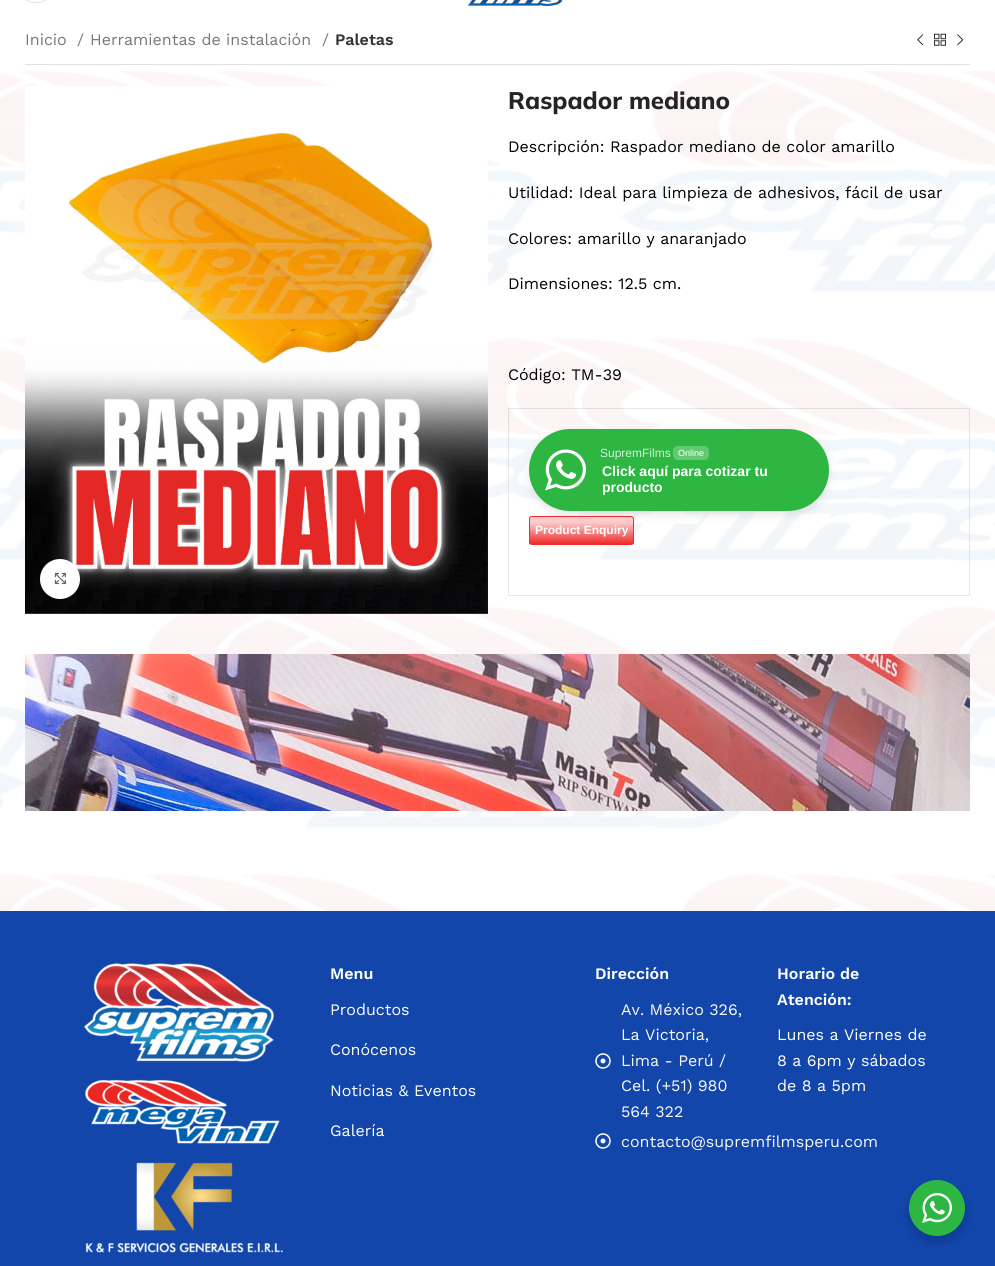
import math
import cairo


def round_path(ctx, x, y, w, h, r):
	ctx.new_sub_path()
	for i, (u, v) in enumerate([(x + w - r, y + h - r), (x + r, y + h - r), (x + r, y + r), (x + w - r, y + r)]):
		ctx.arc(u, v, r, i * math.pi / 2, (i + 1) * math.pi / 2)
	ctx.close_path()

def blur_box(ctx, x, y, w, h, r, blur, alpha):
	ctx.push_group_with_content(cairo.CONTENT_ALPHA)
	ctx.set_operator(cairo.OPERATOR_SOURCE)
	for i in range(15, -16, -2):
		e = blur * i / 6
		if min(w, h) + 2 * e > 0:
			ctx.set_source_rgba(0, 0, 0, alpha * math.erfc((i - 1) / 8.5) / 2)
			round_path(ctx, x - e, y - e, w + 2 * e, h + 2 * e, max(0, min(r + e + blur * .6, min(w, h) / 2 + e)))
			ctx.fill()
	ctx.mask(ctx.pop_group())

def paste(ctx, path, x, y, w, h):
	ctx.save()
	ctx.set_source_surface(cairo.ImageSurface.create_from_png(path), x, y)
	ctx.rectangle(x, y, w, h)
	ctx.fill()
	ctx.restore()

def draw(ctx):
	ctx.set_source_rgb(1, 1, 1)
	ctx.paint()
	round_path(ctx, 15.5, -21.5, 41, 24, 20.5)
	ctx.set_source_rgb(0.894, 0.894, 0.894)
	ctx.set_line_width(1)
	ctx.stroke()
	paste(ctx, 'media/1.png', 467, 0, 96, 7)
	paste(ctx, 'media/2.png', 0, 71, 995, 840)
	ctx.select_font_face('Work Sans')
	ctx.set_font_size(16)
	ctx.set_source_rgb(0.467, 0.467, 0.467)
	for x, y, s in [
		(25, 45, 'Inicio'),
		(77, 45, '/'),
		(90, 45, 'Herramientas de instalación'),
		(322, 45, '/'),
	]:
		ctx.move_to(x, y)
		ctx.show_text(s)
	ctx.select_font_face('Work Sans SemiBold')
	ctx.set_source_rgb(0.2, 0.2, 0.2)
	ctx.move_to(335, 45)
	ctx.show_text('Paletas')
	paste(ctx, 'media/3.png', 917, 34, 7, 12)
	paste(ctx, 'media/4.png', 934, 33, 12, 13)
	paste(ctx, 'media/5.png', 957, 34, 7, 12)
	ctx.set_source_rgb(0.878, 0.878, 0.878)
	ctx.rectangle(25, 64, 945, 1)
	ctx.fill()
	paste(ctx, 'media/6.png', 25, 86, 463, 528)
	ctx.set_source_rgb(0, 0, 0)
	blur_box(ctx, 40, 559, 40, 40, 20, 2.5, 0.08)
	ctx.set_source_rgb(1, 1, 1)
	ctx.arc(60, 579, 20, 0, 2 * math.pi)
	ctx.fill()
	paste(ctx, 'media/7.png', 54, 572, 12, 13)
	ctx.select_font_face('Mulish ExtraBold')
	ctx.set_font_size(24)
	ctx.set_source_rgb(0.141, 0.141, 0.141)
	ctx.move_to(508, 109)
	ctx.show_text('Raspador mediano')
	ctx.select_font_face('Work Sans')
	ctx.set_font_size(16)
	ctx.set_source_rgb(0, 0, 0)
	for x, y, s in [
		(508, 152, 'Descripción: Raspador mediano de color amarillo'),
		(508, 198, 'Utilidad: Ideal para limpieza de adhesivos, fácil de usar'),
		(508, 244, 'Colores: amarillo y anaranjado'),
		(508, 289, 'Dimensiones: 12.5 cm.'),
		(508, 380, 'Código: TM-39'),
	]:
		ctx.move_to(x, y)
		ctx.show_text(s)
	ctx.rectangle(508.5, 408.5, 461, 187)
	ctx.set_source_rgba(0.063, 0.063, 0.063, 0.1)
	ctx.stroke()
	ctx.set_source_rgb(0.125, 0.125, 0.145)
	blur_box(ctx, 528, 432, 302, 84, 42, 4, 0.09)
	ctx.set_source_rgb(0.176, 0.718, 0.259)
	round_path(ctx, 529, 429, 300, 82, 41)
	ctx.fill()
	paste(ctx, 'media/8.png', 545, 449, 41, 42)
	ctx.select_font_face('Liberation Sans')
	ctx.set_font_size(12)
	ctx.set_source_rgb(0.835, 0.941, 0.851)
	ctx.move_to(600, 457)
	ctx.show_text('SupremFilms')
	ctx.set_source_rgb(0.384, 0.788, 0.443)
	round_path(ctx, 673, 446, 36, 14, 5)
	ctx.fill()
	ctx.set_font_size(9)
	ctx.set_source_rgb(1, 1, 1)
	ctx.move_to(678, 456)
	ctx.show_text('Online')
	ctx.select_font_face('Liberation Sans', cairo.FONT_SLANT_NORMAL, cairo.FONT_WEIGHT_BOLD)
	ctx.set_font_size(14)
	ctx.move_to(602, 476)
	ctx.show_text('Click aquí para cotizar tu')
	ctx.move_to(602, 492)
	ctx.show_text('producto')
	ctx.save()
	round_path(ctx, 529, 516, 105, 29, 3)
	ctx.clip()
	gradient = cairo.LinearGradient(530, 517, 530, 544)
	gradient.add_color_stop_rgba(0.2, 0.984, 0.792, 0.792, 1)
	gradient.add_color_stop_rgba(1, 0.933, 0.169, 0.169, 1)
	ctx.set_source(gradient)
	ctx.rectangle(529, 517, 105, 27)
	ctx.fill()
	ctx.restore()
	round_path(ctx, 529.5, 516.5, 104, 28, 2.5)
	ctx.set_source_rgb(0.933, 0.169, 0.169)
	ctx.stroke()
	ctx.set_font_size(12)
	ctx.set_source_rgb(1, 1, 1)
	ctx.move_to(535, 534)
	ctx.show_text('Product Enquiry')
	paste(ctx, 'media/9.png', 25, 654, 945, 157)
	ctx.set_source_rgb(0.071, 0.275, 0.671)
	ctx.rectangle(0, 911, 995, 355)
	ctx.fill()
	paste(ctx, 'media/10.png', 84, 963, 199, 290)
	ctx.select_font_face('Work Sans SemiBold')
	ctx.set_font_size(16)
	ctx.set_source_rgb(1, 1, 1)
	ctx.move_to(595, 979)
	ctx.show_text('Dirección')
	paste(ctx, 'media/11.png', 595, 1053, 16, 16)
	ctx.select_font_face('Work Sans')
	ctx.set_source_rgb(0.976, 0.976, 0.976)
	for x, y, s in [
		(621, 1015, 'Av. México 326,'),
		(621, 1040, 'La Victoria,'),
		(621, 1066, 'Lima - Perú /'),
		(621, 1091, 'Cel. (+51) 980'),
		(621, 1117, '564 322'),
	]:
		ctx.move_to(x, y)
		ctx.show_text(s)
	paste(ctx, 'media/11.png', 595, 1133, 16, 16)
	ctx.move_to(621, 1147)
	ctx.show_text('contacto@supremfilmsperu.com')
	ctx.select_font_face('Work Sans SemiBold')
	ctx.set_source_rgb(1, 1, 1)
	ctx.move_to(330, 979)
	ctx.show_text('Menu')
	ctx.select_font_face('Work Sans')
	for x, y, s in [
		(330, 1015, 'Productos'),
		(330, 1055, 'Conócenos'),
		(330, 1096, 'Noticias & Eventos'),
		(330, 1136, 'Galería'),
	]:
		ctx.move_to(x, y)
		ctx.show_text(s)
	ctx.select_font_face('Work Sans SemiBold')
	ctx.move_to(777, 979)
	ctx.show_text('Horario de')
	ctx.move_to(777, 1005)
	ctx.show_text('Atención:')
	ctx.select_font_face('Work Sans')
	for x, y, s in [
		(777, 1040, 'Lunes a Viernes de'),
		(777, 1066, '8 a 6pm y sábados'),
		(777, 1091, 'de 8 a 5pm'),
	]:
		ctx.move_to(x, y)
		ctx.show_text(s)
	ctx.set_source_rgb(0, 0, 0)
	blur_box(ctx, 907, 1184, 60, 60, 30, 4, 0.14)
	ctx.set_source_rgb(0.176, 0.718, 0.259)
	ctx.arc(937, 1208, 28, 0, 2 * math.pi)
	ctx.fill()
	paste(ctx, 'media/12.png', 922, 1193, 30, 30)


surface = cairo.ImageSurface(cairo.FORMAT_RGB24, 995, 1266)
ctx = cairo.Context(surface)
options = cairo.FontOptions()
options.set_hint_metrics(cairo.HINT_METRICS_OFF)
options.set_hint_style(cairo.HINT_STYLE_NONE)
ctx.set_font_options(options)
ctx.set_miter_limit(4)
draw(ctx)
surface.write_to_png('image.png')
